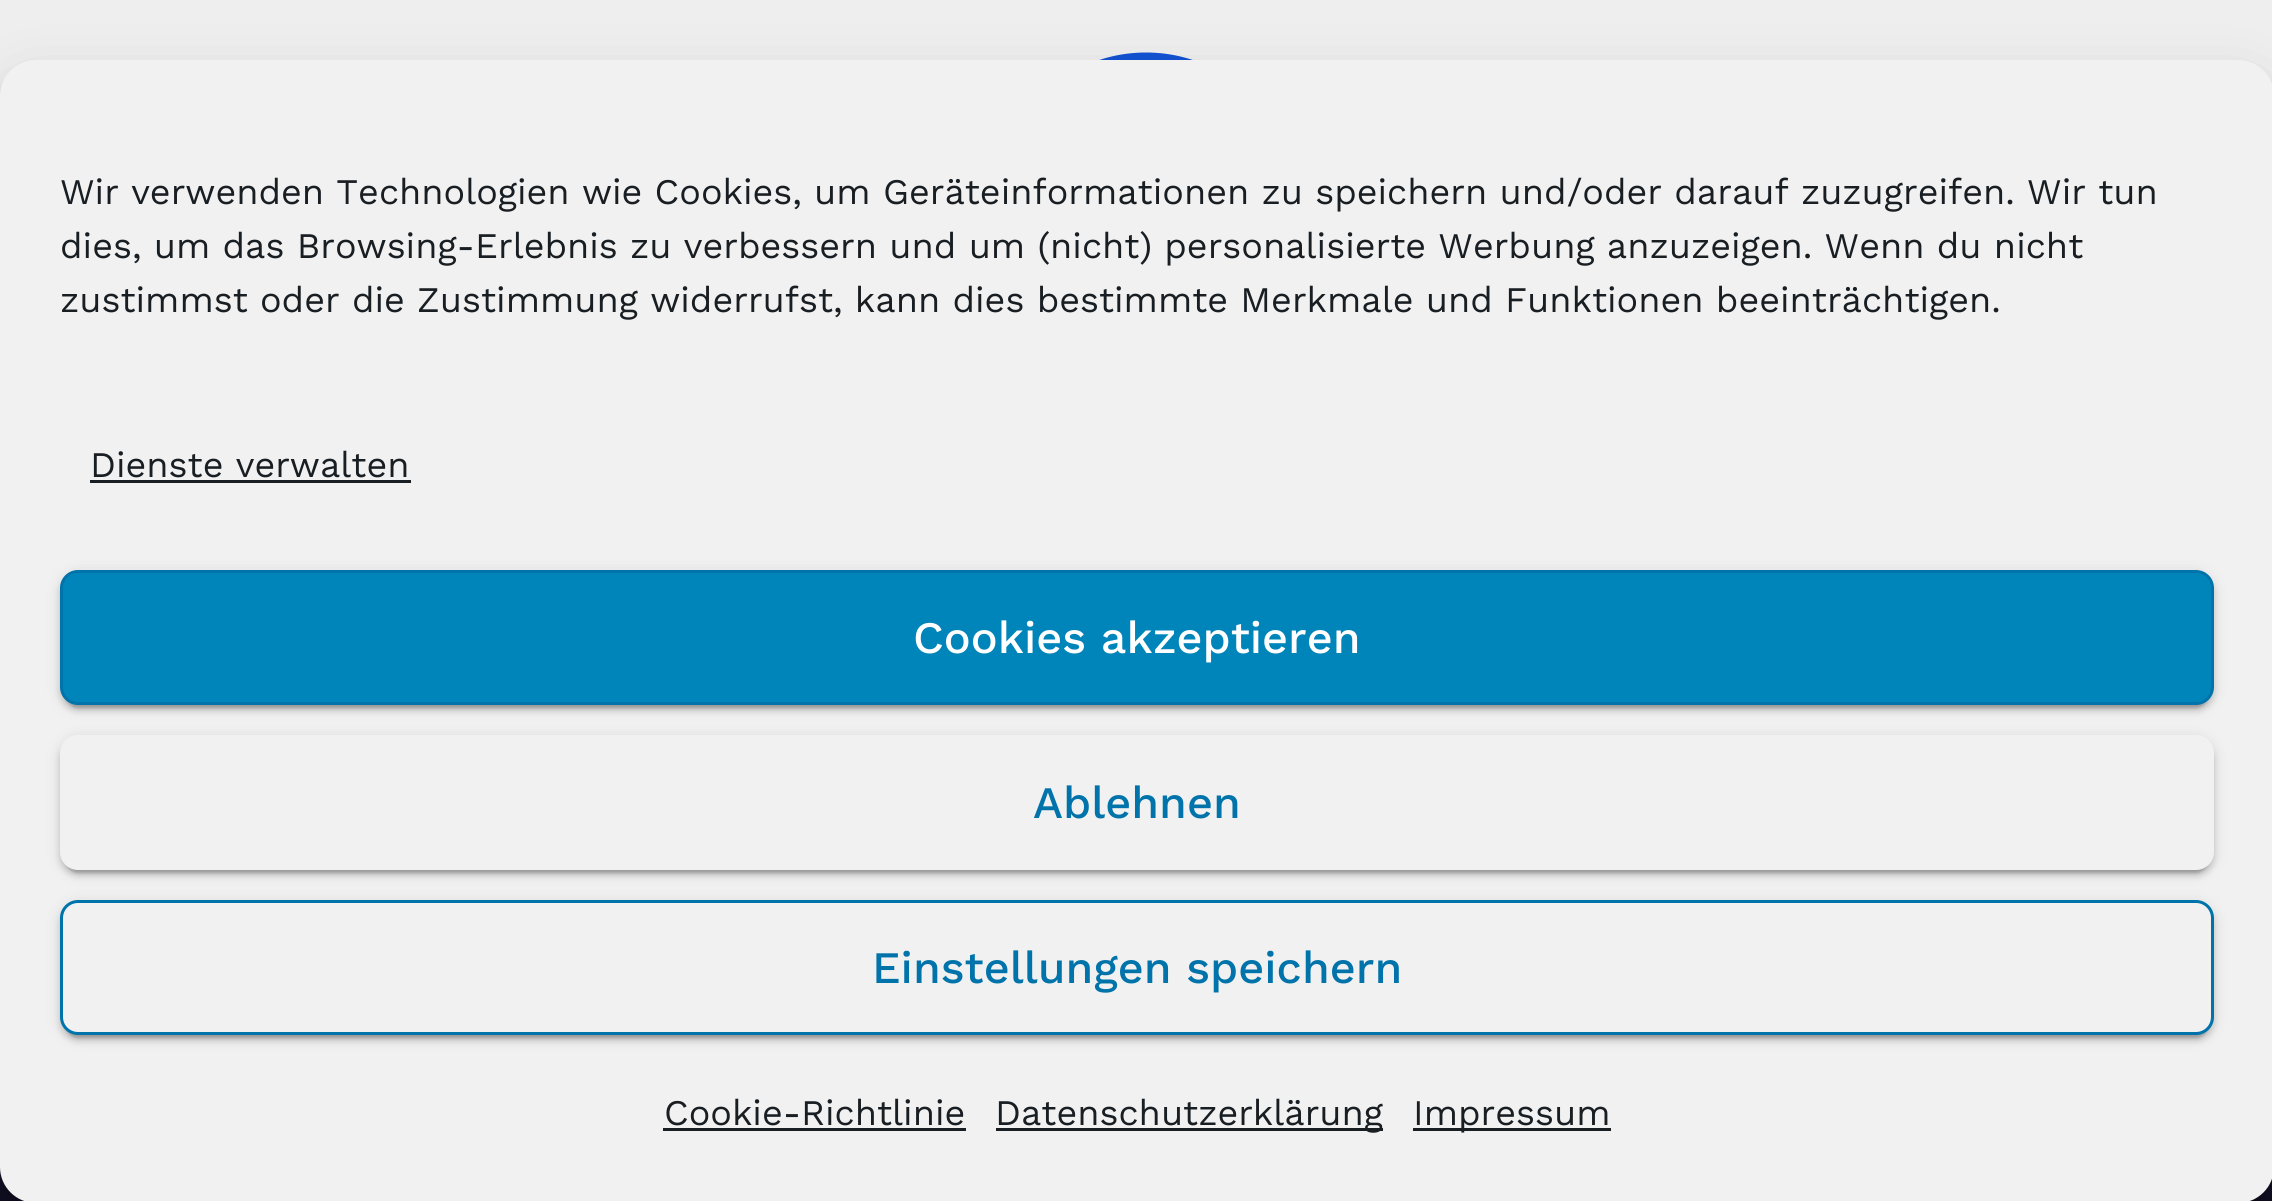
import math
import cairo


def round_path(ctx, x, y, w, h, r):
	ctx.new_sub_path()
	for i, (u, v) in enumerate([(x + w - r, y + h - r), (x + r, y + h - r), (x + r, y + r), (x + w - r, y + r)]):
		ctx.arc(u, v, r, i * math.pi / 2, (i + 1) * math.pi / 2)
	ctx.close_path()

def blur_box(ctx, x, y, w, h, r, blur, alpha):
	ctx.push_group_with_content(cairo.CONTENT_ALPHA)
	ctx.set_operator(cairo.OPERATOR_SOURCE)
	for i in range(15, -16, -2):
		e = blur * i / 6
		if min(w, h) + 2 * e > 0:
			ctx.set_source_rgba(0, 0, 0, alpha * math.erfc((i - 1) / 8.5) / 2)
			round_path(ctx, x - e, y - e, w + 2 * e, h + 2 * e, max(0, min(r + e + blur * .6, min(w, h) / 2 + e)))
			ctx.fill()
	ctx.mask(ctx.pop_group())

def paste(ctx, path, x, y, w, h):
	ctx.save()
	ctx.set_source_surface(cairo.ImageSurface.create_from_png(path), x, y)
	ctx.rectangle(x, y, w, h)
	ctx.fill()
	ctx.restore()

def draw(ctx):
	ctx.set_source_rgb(0.933, 0.933, 0.933)
	ctx.paint()
	paste(ctx, 'media/1.png', 1099, 52, 94, 8)
	ctx.set_source_rgb(0.071, 0.063, 0.149)
	ctx.rectangle(0, 1167, 2272, 34)
	ctx.fill()
	ctx.set_source_rgb(0, 0, 0)
	blur_box(ctx, 0, 78, 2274, 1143, 36, 9, 0.23)
	blur_box(ctx, 0, 90, 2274, 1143, 36, 30, 0.19)
	ctx.set_source_rgb(0.945, 0.945, 0.945)
	round_path(ctx, 0, 60, 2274, 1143, 36)
	ctx.fill()
	ctx.select_font_face('Work Sans')
	ctx.set_font_size(36)
	ctx.set_source_rgb(0.098, 0.118, 0.137)
	for x, y, s in [
		(60, 204, 'Wir verwenden Technologien wie Cookies, um Geräteinformationen zu speichern und/oder darauf zuzugreifen. Wir tun'),
		(60, 258, 'dies, um das Browsing-Erlebnis zu verbessern und um (nicht) personalisierte Werbung anzuzeigen. Wenn du nicht'),
		(60, 312, 'zustimmst oder die Zustimmung widerrufst, kann dies bestimmte Merkmale und Funktionen beeinträchtigen.'),
		(90, 477, 'Dienste verwalten'),
	]:
		ctx.move_to(x, y)
		ctx.show_text(s)
	ctx.rectangle(90, 480, 321, 3)
	ctx.fill()
	ctx.set_source_rgb(0, 0, 0)
	blur_box(ctx, 60, 573, 2154, 135, 18, 7.5, 0.12)
	blur_box(ctx, 66, 585, 2142, 123, 12, 1.5, 0.2)
	blur_box(ctx, 60, 576, 2154, 135, 18, 3, 0.14)
	ctx.set_source_rgb(0, 0.522, 0.729)
	round_path(ctx, 61.5, 571.5, 2151, 132, 16.5)
	ctx.fill_preserve()
	ctx.set_source_rgb(0, 0.451, 0.667)
	ctx.set_line_width(3)
	ctx.stroke()
	ctx.select_font_face('Work Sans Medium')
	ctx.set_font_size(45)
	ctx.set_source_rgb(1, 1, 1)
	ctx.move_to(913, 653)
	ctx.show_text('Cookies akzeptieren')
	ctx.set_source_rgb(0, 0, 0)
	blur_box(ctx, 60, 738, 2154, 135, 18, 7.5, 0.12)
	blur_box(ctx, 66, 750, 2142, 123, 12, 1.5, 0.2)
	blur_box(ctx, 60, 741, 2154, 135, 18, 3, 0.14)
	ctx.set_source_rgb(0.945, 0.945, 0.945)
	round_path(ctx, 61.5, 736.5, 2151, 132, 16.5)
	ctx.fill_preserve()
	ctx.stroke()
	ctx.set_source_rgb(0, 0.451, 0.667)
	ctx.move_to(1033, 818)
	ctx.show_text('Ablehnen')
	ctx.set_source_rgb(0, 0, 0)
	blur_box(ctx, 60, 903, 2154, 135, 18, 7.5, 0.12)
	blur_box(ctx, 66, 915, 2142, 123, 12, 1.5, 0.2)
	blur_box(ctx, 60, 906, 2154, 135, 18, 3, 0.14)
	ctx.set_source_rgb(0.945, 0.945, 0.945)
	round_path(ctx, 61.5, 901.5, 2151, 132, 16.5)
	ctx.fill_preserve()
	ctx.set_source_rgb(0, 0.451, 0.667)
	ctx.stroke()
	ctx.move_to(872, 983)
	ctx.show_text('Einstellungen speichern')
	ctx.select_font_face('Work Sans')
	ctx.set_font_size(36)
	ctx.set_source_rgb(0.098, 0.118, 0.137)
	ctx.move_to(664, 1125)
	ctx.show_text('Cookie-Richtlinie')
	ctx.rectangle(663, 1128, 303, 3)
	ctx.fill()
	ctx.rectangle(996, 1128, 387, 3)
	ctx.fill()
	ctx.move_to(995, 1125)
	ctx.show_text('Datenschutzerklärung')
	ctx.rectangle(1413, 1128, 198, 3)
	ctx.fill()
	ctx.move_to(1413, 1125)
	ctx.show_text('Impressum')


surface = cairo.ImageSurface(cairo.FORMAT_RGB24, 2272, 1201)
ctx = cairo.Context(surface)
options = cairo.FontOptions()
options.set_hint_metrics(cairo.HINT_METRICS_OFF)
options.set_hint_style(cairo.HINT_STYLE_NONE)
ctx.set_font_options(options)
ctx.set_miter_limit(4)
draw(ctx)
surface.write_to_png('image.png')
